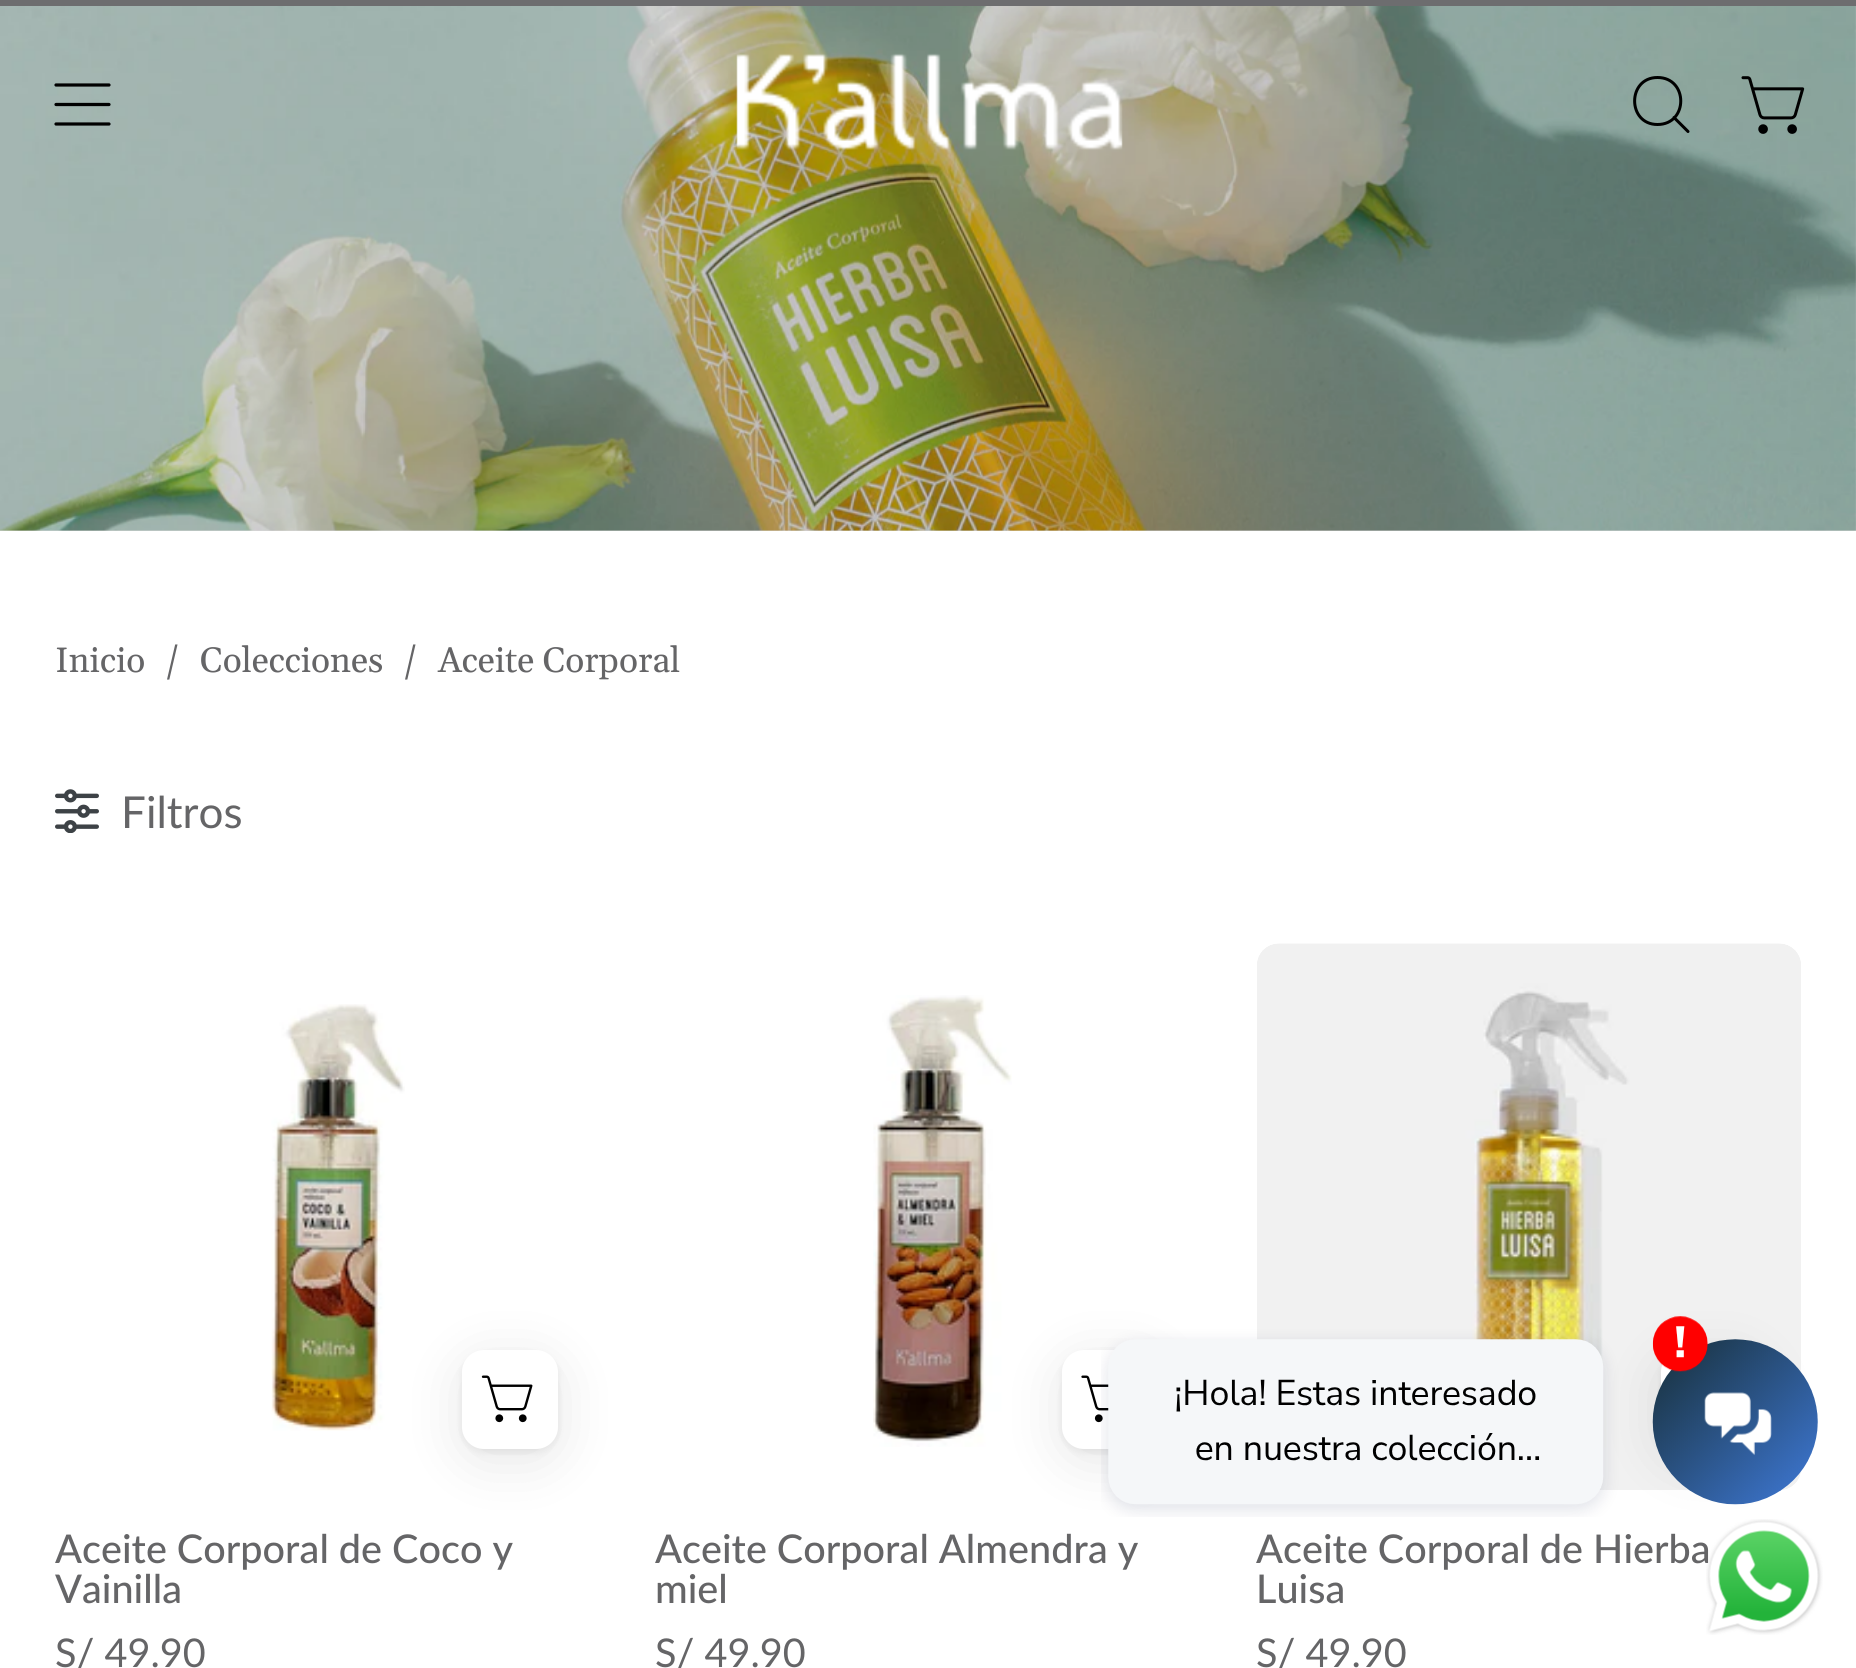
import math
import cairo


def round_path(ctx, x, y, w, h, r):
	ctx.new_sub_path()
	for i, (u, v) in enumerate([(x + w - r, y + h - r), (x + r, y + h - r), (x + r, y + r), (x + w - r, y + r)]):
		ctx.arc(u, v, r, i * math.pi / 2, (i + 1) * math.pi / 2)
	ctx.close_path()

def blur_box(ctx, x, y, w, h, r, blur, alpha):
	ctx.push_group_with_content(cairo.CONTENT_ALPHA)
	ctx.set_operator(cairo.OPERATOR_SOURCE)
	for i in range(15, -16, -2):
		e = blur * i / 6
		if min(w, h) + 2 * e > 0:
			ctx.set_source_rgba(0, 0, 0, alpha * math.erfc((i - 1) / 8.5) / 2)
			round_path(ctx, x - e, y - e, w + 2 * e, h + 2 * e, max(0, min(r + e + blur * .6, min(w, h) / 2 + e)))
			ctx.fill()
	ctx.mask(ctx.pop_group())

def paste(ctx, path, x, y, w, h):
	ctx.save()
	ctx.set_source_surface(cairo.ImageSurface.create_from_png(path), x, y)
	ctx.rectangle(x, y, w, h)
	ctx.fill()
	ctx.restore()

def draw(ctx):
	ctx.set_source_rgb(1, 1, 1)
	ctx.paint()
	ctx.set_source_rgb(0.851, 0.851, 0.851)
	ctx.rectangle(0, 6, 1856, 525)
	ctx.fill()
	ctx.set_source_rgb(0.427, 0.427, 0.435)
	ctx.rectangle(0, 0, 1856, 6)
	ctx.fill()
	paste(ctx, 'media/3.png', 0, 6, 1856, 525)
	ctx.new_path()
	ctx.move_to(56, 104.5)
	ctx.line_to(109, 104.5)
	ctx.move_to(56, 85)
	ctx.line_to(109, 85)
	ctx.move_to(56, 124)
	ctx.line_to(109, 124)
	ctx.set_source_rgb(0, 0, 0)
	ctx.set_line_width(3.2)
	ctx.set_line_cap(cairo.LINE_CAP_ROUND)
	ctx.set_line_join(cairo.LINE_JOIN_ROUND)
	ctx.stroke()
	paste(ctx, 'media/1.png', 736, 53, 387, 97)
	ctx.new_path()
	ctx.move_to(1657.5, 124.5)
	ctx.curve_to(1688.5, 124.5, 1688.5, 77.5, 1657.5, 77.5)
	ctx.curve_to(1627, 77.5, 1627, 124.5, 1657.5, 124.5)
	ctx.close_path()
	ctx.move_to(1674, 117.5)
	ctx.line_to(1688, 131.5)
	ctx.set_line_width(3)
	ctx.stroke()
	paste(ctx, 'media/2.png', 1741, 76, 64, 58)
	ctx.select_font_face('Gelasio')
	ctx.set_font_size(35.25)
	ctx.set_source_rgb(0.396, 0.396, 0.404)
	for x, y, s in [
		(55, 672, 'Inicio'),
		(164, 672, '/'),
		(200, 672, 'Colecciones'),
		(402, 672, '/'),
		(438, 672, 'Aceite Corporal'),
	]:
		ctx.move_to(x, y)
		ctx.show_text(s)
	paste(ctx, 'media/4.png', 55, 789, 44, 44)
	ctx.select_font_face('Lato')
	ctx.set_font_size(44)
	ctx.move_to(121, 828)
	ctx.show_text('Filtros')
	paste(ctx, 'media/5.png', 271, 1004, 134, 427)
	ctx.set_source_rgb(0, 0, 0)
	blur_box(ctx, 462, 1353, 96, 99, 22, 4, 0.07)
	blur_box(ctx, 462, 1361, 96, 99, 22, 27.5, 0.1)
	ctx.set_source_rgb(1, 1, 1)
	round_path(ctx, 462, 1350, 96, 99, 22)
	ctx.fill()
	paste(ctx, 'media/6.png', 481, 1375, 52, 48)
	ctx.select_font_face('Lato Medium')
	ctx.set_font_size(39.6)
	ctx.set_source_rgb(0.396, 0.396, 0.404)
	ctx.move_to(55, 1563)
	ctx.show_text('Aceite Corporal de Coco y')
	ctx.move_to(55, 1603)
	ctx.show_text('Vainilla')
	ctx.select_font_face('Lato')
	ctx.move_to(55, 1667)
	ctx.show_text('S/ 49.90')
	paste(ctx, 'media/7.png', 873, 995, 139, 452)
	ctx.set_source_rgb(0, 0, 0)
	blur_box(ctx, 1062, 1353, 99, 99, 22, 4, 0.07)
	blur_box(ctx, 1062, 1361, 99, 99, 22, 27.5, 0.1)
	ctx.set_source_rgb(1, 1, 1)
	round_path(ctx, 1062, 1350, 99, 99, 22)
	ctx.fill()
	paste(ctx, 'media/8.png', 1081, 1375, 28, 48)
	ctx.select_font_face('Lato Medium')
	ctx.set_source_rgb(0.396, 0.396, 0.404)
	ctx.move_to(655, 1563)
	ctx.show_text('Aceite Corporal Almendra y')
	ctx.move_to(655, 1603)
	ctx.show_text('miel')
	ctx.select_font_face('Lato')
	ctx.move_to(655, 1667)
	ctx.show_text('S/ 49.90')
	paste(ctx, 'media/9.png', 1257, 943, 544, 547)
	ctx.set_source_rgb(0, 0, 0)
	blur_box(ctx, 1661, 1353, 99, 99, 22, 4, 0.07)
	blur_box(ctx, 1661, 1361, 99, 99, 22, 27.5, 0.1)
	ctx.set_source_rgb(1, 1, 1)
	round_path(ctx, 1661, 1350, 99, 99, 22)
	ctx.fill()
	ctx.select_font_face('Lato Medium')
	ctx.set_source_rgb(0.396, 0.396, 0.404)
	ctx.move_to(1256, 1563)
	ctx.show_text('Aceite Corporal de Hierba')
	ctx.move_to(1256, 1603)
	ctx.show_text('Luisa')
	ctx.select_font_face('Lato')
	ctx.move_to(1256, 1667)
	ctx.show_text('S/ 49.90')
	paste(ctx, 'media/10.png', 1101, 1316, 717, 201)
	paste(ctx, 'media/11.png', 1706, 1519, 117, 116)


surface = cairo.ImageSurface(cairo.FORMAT_RGB24, 1856, 1668)
ctx = cairo.Context(surface)
options = cairo.FontOptions()
options.set_hint_metrics(cairo.HINT_METRICS_OFF)
options.set_hint_style(cairo.HINT_STYLE_NONE)
ctx.set_font_options(options)
ctx.set_miter_limit(4)
draw(ctx)
surface.write_to_png('image.png')
